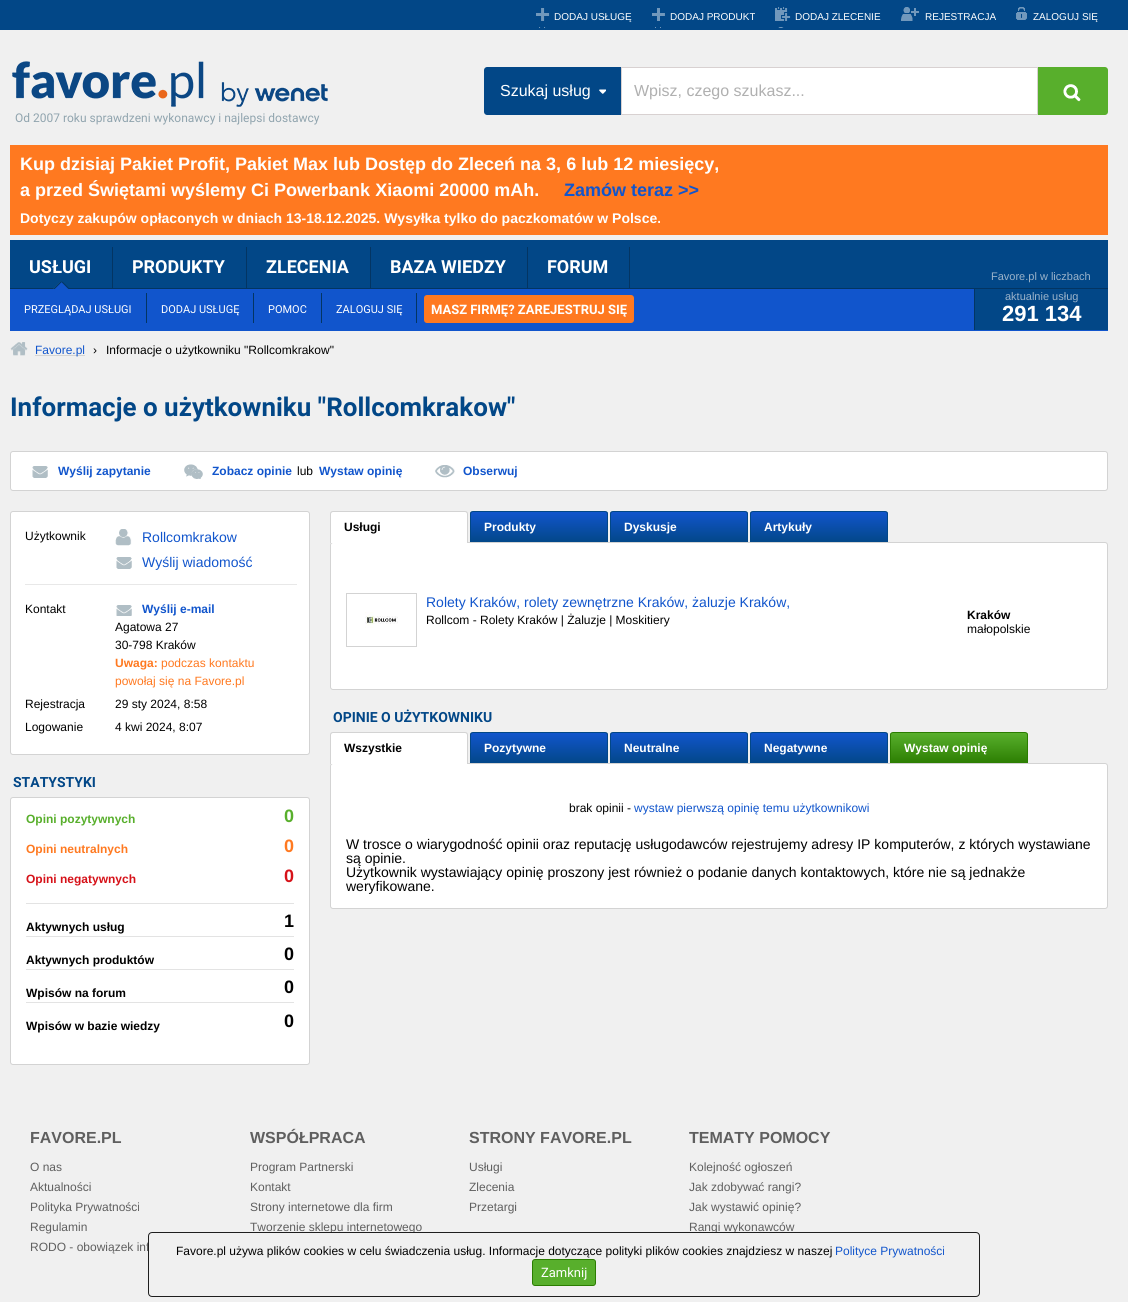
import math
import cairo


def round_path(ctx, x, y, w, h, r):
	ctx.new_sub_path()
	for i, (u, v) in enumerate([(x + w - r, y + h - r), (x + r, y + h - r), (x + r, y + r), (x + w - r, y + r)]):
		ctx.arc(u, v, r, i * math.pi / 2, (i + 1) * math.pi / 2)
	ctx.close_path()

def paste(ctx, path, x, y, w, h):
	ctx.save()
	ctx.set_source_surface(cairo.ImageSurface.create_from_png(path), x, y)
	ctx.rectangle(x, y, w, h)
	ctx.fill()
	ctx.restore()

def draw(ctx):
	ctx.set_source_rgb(0.941, 0.941, 0.941)
	ctx.paint()
	ctx.set_source_rgb(0.008, 0.278, 0.529)
	ctx.rectangle(0, 0, 1128, 30)
	ctx.fill()
	paste(ctx, 'media/1.png', 536, 8, 14, 20)
	ctx.select_font_face('Liberation Sans')
	ctx.set_font_size(10)
	ctx.set_source_rgb(1, 1, 1)
	ctx.move_to(554, 20)
	ctx.show_text('DODAJ USŁUGĘ')
	paste(ctx, 'media/2.png', 652, 8, 13, 20)
	ctx.move_to(670, 20)
	ctx.show_text('DODAJ PRODUKT')
	paste(ctx, 'media/3.png', 775, 7, 16, 21)
	ctx.move_to(795, 20)
	ctx.show_text('DODAJ ZLECENIE')
	paste(ctx, 'media/4.png', 901, 7, 18, 14)
	ctx.move_to(925, 20)
	ctx.show_text('REJESTRACJA')
	paste(ctx, 'media/5.png', 1016, 7, 11, 13)
	ctx.move_to(1033, 20)
	ctx.show_text('ZALOGUJ SIĘ')
	ctx.set_source_rgb(0.008, 0.278, 0.529)
	ctx.new_path()
	ctx.move_to(487, 67)
	ctx.line_to(622, 67)
	ctx.line_to(622, 115)
	ctx.line_to(487, 115)
	ctx.curve_to(485.5, 115, 484, 113.5, 484, 112)
	ctx.line_to(484, 70)
	ctx.curve_to(484, 68.5, 485.5, 67, 487, 67)
	ctx.close_path()
	ctx.fill()
	ctx.set_font_size(16)
	ctx.set_source_rgb(1, 1, 1)
	ctx.move_to(500, 96)
	ctx.show_text('Szukaj usług')
	paste(ctx, 'media/6.png', 599, 89, 7, 5)
	ctx.rectangle(621.5, 67.5, 416, 47)
	ctx.fill_preserve()
	ctx.set_source_rgb(0.847, 0.82, 0.82)
	ctx.set_line_width(1)
	ctx.stroke()
	ctx.set_source_rgb(0.69, 0.69, 0.69)
	ctx.move_to(634, 96)
	ctx.show_text('Wpisz, czego szukasz...')
	ctx.set_source_rgb(0.345, 0.686, 0.173)
	ctx.new_path()
	ctx.move_to(1038, 67)
	ctx.line_to(1105, 67)
	ctx.curve_to(1106.5, 67, 1108, 68.5, 1108, 70)
	ctx.line_to(1108, 112)
	ctx.curve_to(1108, 113.5, 1106.5, 115, 1105, 115)
	ctx.line_to(1038, 115)
	ctx.close_path()
	ctx.fill()
	paste(ctx, 'media/7.png', 1063, 84, 18, 18)
	ctx.set_source_rgb(1, 0.475, 0.125)
	ctx.rectangle(10, 145, 1098, 90)
	ctx.fill()
	ctx.select_font_face('Liberation Sans', cairo.FONT_SLANT_NORMAL, cairo.FONT_WEIGHT_BOLD)
	ctx.set_font_size(18)
	ctx.set_source_rgb(1, 1, 1)
	ctx.move_to(20, 170)
	ctx.show_text('Kup dzisiaj Pakiet Profit, Pakiet Max lub Dostęp do Zleceń na 3, 6 lub 12 miesięcy,')
	ctx.move_to(20, 196)
	ctx.show_text('a przed Świętami wyślemy Ci Powerbank Xiaomi 20000 mAh.')
	ctx.set_source_rgb(0.067, 0.333, 0.8)
	ctx.move_to(564, 196)
	ctx.show_text('Zamów teraz >>')
	ctx.set_font_size(14)
	ctx.set_source_rgb(1, 1, 1)
	ctx.move_to(20, 223)
	ctx.show_text('Dotyczy zakupów opłaconych w dniach 13-18.12.2025. Wysyłka tylko do paczkomatów w Polsce.')
	ctx.set_source_rgb(0.008, 0.278, 0.529)
	ctx.rectangle(10, 240, 1098, 48)
	ctx.fill()
	ctx.set_source_rgb(0.012, 0.208, 0.388)
	ctx.rectangle(10, 288, 1098, 1)
	ctx.fill()
	paste(ctx, 'media/8.png', 53, 281, 16, 8)
	ctx.rectangle(112, 247, 1, 42)
	ctx.fill()
	ctx.select_font_face('Roboto', cairo.FONT_SLANT_NORMAL, cairo.FONT_WEIGHT_BOLD)
	ctx.set_font_size(18)
	ctx.set_source_rgb(1, 1, 1)
	ctx.move_to(29, 273)
	ctx.show_text('USŁUGI')
	ctx.set_source_rgb(0.067, 0.333, 0.8)
	ctx.rectangle(10, 289, 1098, 42)
	ctx.fill()
	ctx.set_source_rgb(0.012, 0.208, 0.388)
	ctx.rectangle(146, 293, 1, 30)
	ctx.fill()
	ctx.select_font_face('Roboto')
	ctx.set_font_size(11)
	ctx.set_source_rgb(1, 1, 1)
	ctx.move_to(24, 313)
	ctx.show_text('PRZEGLĄDAJ USŁUGI')
	ctx.set_source_rgb(0.012, 0.208, 0.388)
	ctx.rectangle(253, 293, 1, 30)
	ctx.fill()
	ctx.set_source_rgb(1, 1, 1)
	ctx.move_to(161, 313)
	ctx.show_text('DODAJ USŁUGĘ')
	ctx.set_source_rgb(0.012, 0.208, 0.388)
	ctx.rectangle(321, 293, 1, 30)
	ctx.fill()
	ctx.set_source_rgb(1, 1, 1)
	ctx.move_to(268, 313)
	ctx.show_text('POMOC')
	ctx.set_source_rgb(0.012, 0.208, 0.388)
	ctx.rectangle(416, 293, 1, 30)
	ctx.fill()
	ctx.set_source_rgb(1, 1, 1)
	ctx.move_to(336, 313)
	ctx.show_text('ZALOGUJ SIĘ')
	ctx.set_source_rgb(1, 0.475, 0.125)
	round_path(ctx, 424, 295, 210, 28, 3)
	ctx.fill()
	ctx.select_font_face('Roboto', cairo.FONT_SLANT_NORMAL, cairo.FONT_WEIGHT_BOLD)
	ctx.set_font_size(13)
	ctx.set_source_rgb(1, 1, 1)
	ctx.move_to(431, 314)
	ctx.show_text('MASZ FIRMĘ? ZAREJESTRUJ SIĘ')
	ctx.select_font_face('Liberation Sans')
	ctx.set_font_size(11)
	ctx.set_source_rgb(0.608, 0.702, 0.792)
	ctx.move_to(991, 280)
	ctx.show_text('Favore.pl w liczbach')
	ctx.set_source_rgb(0.008, 0.278, 0.529)
	ctx.rectangle(975, 289, 133, 41)
	ctx.fill()
	ctx.set_source_rgb(0.012, 0.208, 0.388)
	ctx.rectangle(974, 289, 1, 41)
	ctx.fill()
	ctx.set_source_rgb(0.608, 0.702, 0.792)
	ctx.move_to(1005, 300)
	ctx.show_text('aktualnie usług')
	ctx.select_font_face('Liberation Sans', cairo.FONT_SLANT_NORMAL, cairo.FONT_WEIGHT_BOLD)
	ctx.set_font_size(22)
	ctx.set_source_rgb(1, 1, 1)
	ctx.move_to(1002, 321)
	ctx.show_text('291 134')
	ctx.set_source_rgb(0.012, 0.208, 0.388)
	ctx.rectangle(246, 247, 1, 42)
	ctx.fill()
	ctx.select_font_face('Roboto', cairo.FONT_SLANT_NORMAL, cairo.FONT_WEIGHT_BOLD)
	ctx.set_font_size(18)
	ctx.set_source_rgb(1, 1, 1)
	ctx.move_to(132, 273)
	ctx.show_text('PRODUKTY')
	ctx.set_source_rgb(0.012, 0.208, 0.388)
	ctx.rectangle(370, 247, 1, 42)
	ctx.fill()
	ctx.set_source_rgb(1, 1, 1)
	ctx.move_to(266, 273)
	ctx.show_text('ZLECENIA')
	ctx.set_source_rgb(0.012, 0.208, 0.388)
	ctx.rectangle(527, 247, 1, 42)
	ctx.fill()
	ctx.set_source_rgb(1, 1, 1)
	ctx.move_to(390, 273)
	ctx.show_text('BAZA WIEDZY')
	ctx.set_source_rgb(0.012, 0.208, 0.388)
	ctx.rectangle(629, 247, 1, 42)
	ctx.fill()
	ctx.set_source_rgb(1, 1, 1)
	ctx.move_to(547, 273)
	ctx.show_text('FORUM')
	paste(ctx, 'media/9.png', 12, 61, 316, 46)
	ctx.select_font_face('Roboto')
	ctx.set_font_size(12)
	ctx.set_source_rgb(0.565, 0.643, 0.682)
	ctx.move_to(15, 122)
	ctx.show_text('Od 2007 roku sprawdzeni wykonawcy i najlepsi dostawcy')
	paste(ctx, 'media/10.png', 10, 342, 18, 14)
	ctx.set_source_rgb(0.827, 0.827, 0.827)
	ctx.rectangle(35, 355, 50, 1)
	ctx.fill()
	ctx.select_font_face('Liberation Sans')
	ctx.set_source_rgb(0.067, 0.333, 0.8)
	ctx.move_to(35, 354)
	ctx.show_text('Favore.pl')
	ctx.set_source_rgb(0, 0, 0)
	ctx.move_to(93, 354)
	ctx.show_text('›')
	ctx.move_to(106, 354)
	ctx.show_text('Informacje o użytkowniku "Rollcomkrakow"')
	ctx.select_font_face('Roboto', cairo.FONT_SLANT_NORMAL, cairo.FONT_WEIGHT_BOLD)
	ctx.set_font_size(26)
	ctx.set_source_rgb(0.008, 0.278, 0.529)
	ctx.move_to(10, 416)
	ctx.show_text('Informacje o użytkowniku "Rollcomkrakow"')
	ctx.set_source_rgb(1, 1, 1)
	round_path(ctx, 10.5, 451.5, 1097, 39, 2.5)
	ctx.fill_preserve()
	ctx.set_source_rgb(0.827, 0.827, 0.827)
	ctx.stroke()
	paste(ctx, 'media/11.png', 32, 466, 16, 12)
	ctx.select_font_face('Liberation Sans', cairo.FONT_SLANT_NORMAL, cairo.FONT_WEIGHT_BOLD)
	ctx.set_font_size(12)
	ctx.set_source_rgb(0.067, 0.333, 0.8)
	ctx.move_to(58, 475)
	ctx.show_text('Wyślij zapytanie')
	paste(ctx, 'media/12.png', 184, 464, 19, 15)
	ctx.move_to(212, 475)
	ctx.show_text('Zobacz opinie')
	ctx.select_font_face('Liberation Sans')
	ctx.set_source_rgb(0, 0, 0)
	ctx.move_to(297, 475)
	ctx.show_text('lub')
	ctx.select_font_face('Liberation Sans', cairo.FONT_SLANT_NORMAL, cairo.FONT_WEIGHT_BOLD)
	ctx.set_source_rgb(0.067, 0.333, 0.8)
	ctx.move_to(319, 475)
	ctx.show_text('Wystaw opinię')
	paste(ctx, 'media/13.png', 435, 465, 20, 13)
	ctx.move_to(463, 475)
	ctx.show_text('Obserwuj')
	ctx.set_source_rgb(1, 1, 1)
	round_path(ctx, 10.5, 511.5, 299, 243, 2.5)
	ctx.fill_preserve()
	ctx.set_source_rgb(0.827, 0.827, 0.827)
	ctx.stroke()
	ctx.set_source_rgb(0.91, 0.91, 0.91)
	ctx.rectangle(25, 584, 272, 1)
	ctx.fill()
	ctx.select_font_face('Liberation Sans')
	ctx.set_source_rgb(0, 0, 0)
	ctx.move_to(25, 540)
	ctx.show_text('Użytkownik')
	paste(ctx, 'media/14.png', 115, 529, 17, 17)
	ctx.set_font_size(14)
	ctx.set_source_rgb(0.067, 0.333, 0.8)
	ctx.move_to(142, 542)
	ctx.show_text('Rollcomkrakow')
	paste(ctx, 'media/15.png', 116, 557, 16, 12)
	ctx.move_to(142, 567)
	ctx.show_text('Wyślij wiadomość')
	ctx.set_font_size(12)
	ctx.set_source_rgb(0, 0, 0)
	ctx.move_to(25, 613)
	ctx.show_text('Kontakt')
	paste(ctx, 'media/16.png', 116, 605, 16, 11)
	ctx.select_font_face('Liberation Sans', cairo.FONT_SLANT_NORMAL, cairo.FONT_WEIGHT_BOLD)
	ctx.set_source_rgb(0.067, 0.333, 0.8)
	ctx.move_to(142, 613)
	ctx.show_text('Wyślij e-mail')
	ctx.select_font_face('Liberation Sans')
	ctx.set_source_rgb(0, 0, 0)
	ctx.move_to(115, 631)
	ctx.show_text('Agatowa 27')
	ctx.move_to(115, 649)
	ctx.show_text('30-798 Kraków')
	ctx.select_font_face('Liberation Sans', cairo.FONT_SLANT_NORMAL, cairo.FONT_WEIGHT_BOLD)
	ctx.set_source_rgb(1, 0.475, 0.125)
	ctx.move_to(115, 667)
	ctx.show_text('Uwaga:')
	ctx.select_font_face('Liberation Sans')
	ctx.move_to(161, 667)
	ctx.show_text('podczas kontaktu')
	ctx.move_to(115, 685)
	ctx.show_text('powołaj się na Favore.pl')
	ctx.set_source_rgb(0, 0, 0)
	for x, y, s in [
		(25, 708, 'Rejestracja'),
		(115, 708, '29 sty 2024, 8:58'),
		(25, 731, 'Logowanie'),
		(115, 731, '4 kwi 2024, 8:07'),
	]:
		ctx.move_to(x, y)
		ctx.show_text(s)
	ctx.select_font_face('Roboto', cairo.FONT_SLANT_NORMAL, cairo.FONT_WEIGHT_BOLD)
	ctx.set_font_size(14)
	ctx.set_source_rgb(0.008, 0.278, 0.529)
	ctx.move_to(13, 787)
	ctx.show_text('STATYSTYKI')
	ctx.set_source_rgb(1, 1, 1)
	round_path(ctx, 10.5, 797.5, 299, 267, 2.5)
	ctx.fill_preserve()
	ctx.set_source_rgb(0.827, 0.827, 0.827)
	ctx.stroke()
	ctx.select_font_face('Liberation Sans', cairo.FONT_SLANT_NORMAL, cairo.FONT_WEIGHT_BOLD)
	ctx.set_font_size(12)
	ctx.set_source_rgb(0.345, 0.686, 0.173)
	ctx.move_to(26, 823)
	ctx.show_text('Opini pozytywnych')
	ctx.set_font_size(18)
	ctx.move_to(284, 822)
	ctx.show_text('0')
	ctx.set_font_size(12)
	ctx.set_source_rgb(1, 0.475, 0.125)
	ctx.move_to(26, 853)
	ctx.show_text('Opini neutralnych')
	ctx.set_font_size(18)
	ctx.move_to(284, 852)
	ctx.show_text('0')
	ctx.set_font_size(12)
	ctx.set_source_rgb(0.839, 0.071, 0.098)
	ctx.move_to(26, 883)
	ctx.show_text('Opini negatywnych')
	ctx.set_font_size(18)
	ctx.move_to(284, 882)
	ctx.show_text('0')
	ctx.set_source_rgb(0.89, 0.89, 0.89)
	ctx.rectangle(26, 903, 268, 1)
	ctx.fill()
	ctx.set_font_size(12)
	ctx.set_source_rgb(0, 0, 0)
	ctx.move_to(26, 931)
	ctx.show_text('Aktywnych usług')
	ctx.set_font_size(18)
	ctx.move_to(284, 927)
	ctx.show_text('1')
	ctx.set_source_rgb(0.89, 0.89, 0.89)
	ctx.rectangle(26, 936, 268, 1)
	ctx.fill()
	ctx.set_font_size(12)
	ctx.set_source_rgb(0, 0, 0)
	ctx.move_to(26, 964)
	ctx.show_text('Aktywnych produktów')
	ctx.set_font_size(18)
	ctx.move_to(284, 960)
	ctx.show_text('0')
	ctx.set_source_rgb(0.89, 0.89, 0.89)
	ctx.rectangle(26, 969, 268, 1)
	ctx.fill()
	ctx.set_font_size(12)
	ctx.set_source_rgb(0, 0, 0)
	ctx.move_to(26, 997)
	ctx.show_text('Wpisów na forum')
	ctx.set_font_size(18)
	ctx.move_to(284, 993)
	ctx.show_text('0')
	ctx.set_source_rgb(0.89, 0.89, 0.89)
	ctx.rectangle(26, 1002, 268, 1)
	ctx.fill()
	ctx.set_font_size(12)
	ctx.set_source_rgb(0, 0, 0)
	ctx.move_to(26, 1030)
	ctx.show_text('Wpisów w bazie wiedzy')
	ctx.set_font_size(18)
	ctx.move_to(284, 1027)
	ctx.show_text('0')
	ctx.save()
	ctx.new_path()
	ctx.move_to(473, 511)
	ctx.line_to(605, 511)
	ctx.curve_to(606.5, 511, 608, 512.5, 608, 514)
	ctx.line_to(608, 543)
	ctx.line_to(470, 543)
	ctx.line_to(470, 514)
	ctx.curve_to(470, 512.5, 471.5, 511, 473, 511)
	ctx.close_path()
	ctx.clip()
	gradient = cairo.LinearGradient(539, 512, 539, 543)
	gradient.add_color_stop_rgba(0, 0.067, 0.333, 0.8, 1)
	gradient.add_color_stop_rgba(1, 0.008, 0.278, 0.529, 1)
	ctx.set_source(gradient)
	ctx.rectangle(470, 512, 138, 30)
	ctx.fill()
	ctx.restore()
	ctx.set_source_rgb(0.008, 0.278, 0.529)
	ctx.set_fill_rule(cairo.FILL_RULE_EVEN_ODD)
	ctx.new_path()
	ctx.move_to(473, 511)
	ctx.line_to(605, 511)
	ctx.curve_to(607, 511, 608, 512, 608, 514)
	ctx.line_to(608, 543)
	ctx.line_to(470, 543)
	ctx.line_to(470, 514)
	ctx.curve_to(470, 512, 471, 511, 473, 511)
	ctx.close_path()
	ctx.move_to(473, 512)
	ctx.line_to(605, 512)
	ctx.curve_to(606, 512, 607, 513, 607, 514)
	ctx.line_to(607, 543)
	ctx.line_to(471, 543)
	ctx.line_to(471, 514)
	ctx.curve_to(471, 513, 472, 512, 473, 512)
	ctx.close_path()
	ctx.fill()
	ctx.save()
	ctx.set_fill_rule(cairo.FILL_RULE_WINDING)
	ctx.new_path()
	ctx.move_to(613, 511)
	ctx.line_to(745, 511)
	ctx.curve_to(746.5, 511, 748, 512.5, 748, 514)
	ctx.line_to(748, 543)
	ctx.line_to(610, 543)
	ctx.line_to(610, 514)
	ctx.curve_to(610, 512.5, 611.5, 511, 613, 511)
	ctx.close_path()
	ctx.clip()
	gradient = cairo.LinearGradient(679, 512, 679, 543)
	gradient.add_color_stop_rgba(0, 0.067, 0.333, 0.8, 1)
	gradient.add_color_stop_rgba(1, 0.008, 0.278, 0.529, 1)
	ctx.set_source(gradient)
	ctx.rectangle(610, 512, 138, 30)
	ctx.fill()
	ctx.restore()
	ctx.new_path()
	ctx.move_to(613, 511)
	ctx.line_to(745, 511)
	ctx.curve_to(747, 511, 748, 512, 748, 514)
	ctx.line_to(748, 543)
	ctx.line_to(610, 543)
	ctx.line_to(610, 514)
	ctx.curve_to(610, 512, 611, 511, 613, 511)
	ctx.close_path()
	ctx.move_to(613, 512)
	ctx.line_to(745, 512)
	ctx.curve_to(746, 512, 747, 513, 747, 514)
	ctx.line_to(747, 543)
	ctx.line_to(611, 543)
	ctx.line_to(611, 514)
	ctx.curve_to(611, 513, 612, 512, 613, 512)
	ctx.close_path()
	ctx.fill()
	ctx.save()
	ctx.set_fill_rule(cairo.FILL_RULE_WINDING)
	ctx.new_path()
	ctx.move_to(753, 511)
	ctx.line_to(885, 511)
	ctx.curve_to(886.5, 511, 888, 512.5, 888, 514)
	ctx.line_to(888, 543)
	ctx.line_to(750, 543)
	ctx.line_to(750, 514)
	ctx.curve_to(750, 512.5, 751.5, 511, 753, 511)
	ctx.close_path()
	ctx.clip()
	gradient = cairo.LinearGradient(819, 512, 819, 543)
	gradient.add_color_stop_rgba(0, 0.067, 0.333, 0.8, 1)
	gradient.add_color_stop_rgba(1, 0.008, 0.278, 0.529, 1)
	ctx.set_source(gradient)
	ctx.rectangle(750, 512, 138, 30)
	ctx.fill()
	ctx.restore()
	ctx.new_path()
	ctx.move_to(753, 511)
	ctx.line_to(885, 511)
	ctx.curve_to(887, 511, 888, 512, 888, 514)
	ctx.line_to(888, 543)
	ctx.line_to(750, 543)
	ctx.line_to(750, 514)
	ctx.curve_to(750, 512, 751, 511, 753, 511)
	ctx.close_path()
	ctx.move_to(753, 512)
	ctx.line_to(885, 512)
	ctx.curve_to(886, 512, 887, 513, 887, 514)
	ctx.line_to(887, 543)
	ctx.line_to(751, 543)
	ctx.line_to(751, 514)
	ctx.curve_to(751, 513, 752, 512, 753, 512)
	ctx.close_path()
	ctx.fill()
	ctx.set_source_rgb(1, 1, 1)
	round_path(ctx, 330.5, 542.5, 777, 147, 2.5)
	ctx.fill_preserve()
	ctx.set_source_rgb(0.827, 0.827, 0.827)
	ctx.stroke()
	ctx.set_source_rgb(1, 1, 1)
	ctx.new_path()
	ctx.move_to(333, 511)
	ctx.line_to(465, 511)
	ctx.curve_to(466.5, 511, 468, 512.5, 468, 514)
	ctx.line_to(468, 543)
	ctx.line_to(330, 543)
	ctx.line_to(330, 514)
	ctx.curve_to(330, 512.5, 331.5, 511, 333, 511)
	ctx.close_path()
	ctx.fill()
	ctx.set_source_rgb(0.827, 0.827, 0.827)
	ctx.new_path()
	ctx.move_to(333, 511)
	ctx.line_to(465, 511)
	ctx.curve_to(467, 511, 468, 512, 468, 514)
	ctx.line_to(468, 543)
	ctx.line_to(330, 543)
	ctx.line_to(330, 514)
	ctx.curve_to(330, 512, 331, 511, 333, 511)
	ctx.close_path()
	ctx.move_to(333, 512)
	ctx.line_to(465, 512)
	ctx.curve_to(466, 512, 467, 513, 467, 514)
	ctx.line_to(467, 543)
	ctx.line_to(331, 543)
	ctx.line_to(331, 514)
	ctx.curve_to(331, 513, 332, 512, 333, 512)
	ctx.close_path()
	ctx.fill()
	ctx.set_font_size(12)
	ctx.set_source_rgb(0, 0, 0)
	ctx.move_to(344, 531)
	ctx.show_text('Usługi')
	ctx.set_source_rgb(1, 1, 1)
	for x, y, s in [
		(484, 531, 'Produkty'),
		(624, 531, 'Dyskusje'),
		(764, 531, 'Artykuły'),
	]:
		ctx.move_to(x, y)
		ctx.show_text(s)
	ctx.rectangle(346.5, 593.5, 70, 53)
	ctx.set_source_rgb(0.827, 0.827, 0.827)
	ctx.stroke()
	paste(ctx, 'media/17.png', 365, 612, 33, 16)
	ctx.select_font_face('Liberation Sans')
	ctx.set_font_size(14)
	ctx.set_source_rgb(0.067, 0.333, 0.8)
	ctx.move_to(426, 607)
	ctx.show_text('Rolety Kraków, rolety zewnętrzne Kraków, żaluzje Kraków,')
	ctx.set_font_size(12)
	ctx.set_source_rgb(0, 0, 0)
	ctx.move_to(426, 624)
	ctx.show_text('Rollcom - Rolety Kraków | Żaluzje | Moskitiery')
	ctx.select_font_face('Liberation Sans', cairo.FONT_SLANT_NORMAL, cairo.FONT_WEIGHT_BOLD)
	ctx.move_to(967, 619)
	ctx.show_text('Kraków')
	ctx.select_font_face('Liberation Sans')
	ctx.move_to(967, 633)
	ctx.show_text('małopolskie')
	ctx.select_font_face('Roboto', cairo.FONT_SLANT_NORMAL, cairo.FONT_WEIGHT_BOLD)
	ctx.set_font_size(14)
	ctx.set_source_rgb(0.008, 0.278, 0.529)
	ctx.move_to(333, 722)
	ctx.show_text('OPINIE O UŻYTKOWNIKU')
	ctx.save()
	ctx.set_fill_rule(cairo.FILL_RULE_WINDING)
	ctx.new_path()
	ctx.move_to(473, 732)
	ctx.line_to(605, 732)
	ctx.curve_to(606.5, 732, 608, 733.5, 608, 735)
	ctx.line_to(608, 764)
	ctx.line_to(470, 764)
	ctx.line_to(470, 735)
	ctx.curve_to(470, 733.5, 471.5, 732, 473, 732)
	ctx.close_path()
	ctx.clip()
	gradient = cairo.LinearGradient(539, 733, 539, 764)
	gradient.add_color_stop_rgba(0, 0.067, 0.333, 0.8, 1)
	gradient.add_color_stop_rgba(1, 0.008, 0.278, 0.529, 1)
	ctx.set_source(gradient)
	ctx.rectangle(470, 733, 138, 30)
	ctx.fill()
	ctx.restore()
	ctx.new_path()
	ctx.move_to(473, 732)
	ctx.line_to(605, 732)
	ctx.curve_to(607, 732, 608, 733, 608, 735)
	ctx.line_to(608, 764)
	ctx.line_to(470, 764)
	ctx.line_to(470, 735)
	ctx.curve_to(470, 733, 471, 732, 473, 732)
	ctx.close_path()
	ctx.move_to(473, 733)
	ctx.line_to(605, 733)
	ctx.curve_to(606, 733, 607, 734, 607, 735)
	ctx.line_to(607, 764)
	ctx.line_to(471, 764)
	ctx.line_to(471, 735)
	ctx.curve_to(471, 734, 472, 733, 473, 733)
	ctx.close_path()
	ctx.fill()
	ctx.save()
	ctx.set_fill_rule(cairo.FILL_RULE_WINDING)
	ctx.new_path()
	ctx.move_to(613, 732)
	ctx.line_to(745, 732)
	ctx.curve_to(746.5, 732, 748, 733.5, 748, 735)
	ctx.line_to(748, 764)
	ctx.line_to(610, 764)
	ctx.line_to(610, 735)
	ctx.curve_to(610, 733.5, 611.5, 732, 613, 732)
	ctx.close_path()
	ctx.clip()
	gradient = cairo.LinearGradient(679, 733, 679, 764)
	gradient.add_color_stop_rgba(0, 0.067, 0.333, 0.8, 1)
	gradient.add_color_stop_rgba(1, 0.008, 0.278, 0.529, 1)
	ctx.set_source(gradient)
	ctx.rectangle(610, 733, 138, 30)
	ctx.fill()
	ctx.restore()
	ctx.new_path()
	ctx.move_to(613, 732)
	ctx.line_to(745, 732)
	ctx.curve_to(747, 732, 748, 733, 748, 735)
	ctx.line_to(748, 764)
	ctx.line_to(610, 764)
	ctx.line_to(610, 735)
	ctx.curve_to(610, 733, 611, 732, 613, 732)
	ctx.close_path()
	ctx.move_to(613, 733)
	ctx.line_to(745, 733)
	ctx.curve_to(746, 733, 747, 734, 747, 735)
	ctx.line_to(747, 764)
	ctx.line_to(611, 764)
	ctx.line_to(611, 735)
	ctx.curve_to(611, 734, 612, 733, 613, 733)
	ctx.close_path()
	ctx.fill()
	ctx.save()
	ctx.set_fill_rule(cairo.FILL_RULE_WINDING)
	ctx.new_path()
	ctx.move_to(753, 732)
	ctx.line_to(885, 732)
	ctx.curve_to(886.5, 732, 888, 733.5, 888, 735)
	ctx.line_to(888, 764)
	ctx.line_to(750, 764)
	ctx.line_to(750, 735)
	ctx.curve_to(750, 733.5, 751.5, 732, 753, 732)
	ctx.close_path()
	ctx.clip()
	gradient = cairo.LinearGradient(819, 733, 819, 764)
	gradient.add_color_stop_rgba(0, 0.067, 0.333, 0.8, 1)
	gradient.add_color_stop_rgba(1, 0.008, 0.278, 0.529, 1)
	ctx.set_source(gradient)
	ctx.rectangle(750, 733, 138, 30)
	ctx.fill()
	ctx.restore()
	ctx.new_path()
	ctx.move_to(753, 732)
	ctx.line_to(885, 732)
	ctx.curve_to(887, 732, 888, 733, 888, 735)
	ctx.line_to(888, 764)
	ctx.line_to(750, 764)
	ctx.line_to(750, 735)
	ctx.curve_to(750, 733, 751, 732, 753, 732)
	ctx.close_path()
	ctx.move_to(753, 733)
	ctx.line_to(885, 733)
	ctx.curve_to(886, 733, 887, 734, 887, 735)
	ctx.line_to(887, 764)
	ctx.line_to(751, 764)
	ctx.line_to(751, 735)
	ctx.curve_to(751, 734, 752, 733, 753, 733)
	ctx.close_path()
	ctx.fill()
	ctx.save()
	ctx.set_fill_rule(cairo.FILL_RULE_WINDING)
	ctx.new_path()
	ctx.move_to(893, 732)
	ctx.line_to(1025, 732)
	ctx.curve_to(1026.5, 732, 1028, 733.5, 1028, 735)
	ctx.line_to(1028, 765)
	ctx.line_to(890, 765)
	ctx.line_to(890, 735)
	ctx.curve_to(890, 733.5, 891.5, 732, 893, 732)
	ctx.close_path()
	ctx.clip()
	gradient = cairo.LinearGradient(959, 733, 959, 764)
	gradient.add_color_stop_rgba(0.01, 0.345, 0.686, 0.173, 1)
	gradient.add_color_stop_rgba(0.99, 0.169, 0.49, 0.004, 1)
	ctx.set_source(gradient)
	ctx.rectangle(890, 733, 138, 30)
	ctx.fill()
	ctx.restore()
	ctx.new_path()
	ctx.move_to(893, 732.5)
	ctx.line_to(1025, 732.5)
	ctx.curve_to(1026.5, 732.5, 1027.5, 733.5, 1027.5, 735)
	ctx.line_to(1027.5, 764.5)
	ctx.line_to(890.5, 764.5)
	ctx.line_to(890.5, 735)
	ctx.curve_to(890.5, 733.5, 891.5, 732.5, 893, 732.5)
	ctx.close_path()
	ctx.set_source_rgb(0.169, 0.49, 0.004)
	ctx.stroke()
	ctx.set_source_rgb(1, 1, 1)
	round_path(ctx, 330.5, 763.5, 777, 145, 2.5)
	ctx.fill_preserve()
	ctx.set_source_rgb(0.827, 0.827, 0.827)
	ctx.stroke()
	ctx.set_source_rgb(1, 1, 1)
	ctx.new_path()
	ctx.move_to(333, 732)
	ctx.line_to(465, 732)
	ctx.curve_to(466.5, 732, 468, 733.5, 468, 735)
	ctx.line_to(468, 764)
	ctx.line_to(330, 764)
	ctx.line_to(330, 735)
	ctx.curve_to(330, 733.5, 331.5, 732, 333, 732)
	ctx.close_path()
	ctx.fill()
	ctx.set_source_rgb(0.827, 0.827, 0.827)
	ctx.new_path()
	ctx.move_to(333, 732)
	ctx.line_to(465, 732)
	ctx.curve_to(467, 732, 468, 733, 468, 735)
	ctx.line_to(468, 764)
	ctx.line_to(330, 764)
	ctx.line_to(330, 735)
	ctx.curve_to(330, 733, 331, 732, 333, 732)
	ctx.close_path()
	ctx.move_to(333, 733)
	ctx.line_to(465, 733)
	ctx.curve_to(466, 733, 467, 734, 467, 735)
	ctx.line_to(467, 764)
	ctx.line_to(331, 764)
	ctx.line_to(331, 735)
	ctx.curve_to(331, 734, 332, 733, 333, 733)
	ctx.close_path()
	ctx.fill()
	ctx.select_font_face('Liberation Sans', cairo.FONT_SLANT_NORMAL, cairo.FONT_WEIGHT_BOLD)
	ctx.set_font_size(12)
	ctx.set_source_rgb(0, 0, 0)
	ctx.move_to(344, 752)
	ctx.show_text('Wszystkie')
	ctx.set_source_rgb(1, 1, 1)
	for x, y, s in [
		(484, 752, 'Pozytywne'),
		(624, 752, 'Neutralne'),
		(764, 752, 'Negatywne'),
		(904, 752, 'Wystaw opinię'),
	]:
		ctx.move_to(x, y)
		ctx.show_text(s)
	ctx.select_font_face('Liberation Sans')
	ctx.set_source_rgb(0, 0, 0)
	ctx.move_to(569, 812)
	ctx.show_text('brak opinii -')
	ctx.set_source_rgb(0.067, 0.333, 0.8)
	ctx.move_to(634, 812)
	ctx.show_text('wystaw pierwszą opinię temu użytkownikowi')
	ctx.set_font_size(14)
	ctx.set_source_rgb(0, 0, 0)
	for x, y, s in [
		(346, 849, 'W trosce o wiarygodność opinii oraz reputację usługodawców rejestrujemy adresy IP komputerów, z których wystawiane'),
		(346, 863, 'są opinie.'),
		(346, 877, 'Użytkownik wystawiający opinię proszony jest również o podanie danych kontaktowych, które nie są jednakże'),
		(346, 891, 'weryfikowane.'),
	]:
		ctx.move_to(x, y)
		ctx.show_text(s)
	ctx.select_font_face('Liberation Sans', cairo.FONT_SLANT_NORMAL, cairo.FONT_WEIGHT_BOLD)
	ctx.set_font_size(16)
	ctx.set_source_rgb(0.373, 0.373, 0.373)
	ctx.move_to(30, 1143)
	ctx.show_text('FAVORE.PL')
	ctx.select_font_face('Liberation Sans')
	ctx.set_font_size(12)
	for x, y, s in [
		(30, 1171, 'O nas'),
		(30, 1191, 'Aktualności'),
		(30, 1211, 'Polityka Prywatności'),
		(30, 1231, 'Regulamin'),
		(30, 1251, 'RODO - obowiązek inf'),
	]:
		ctx.move_to(x, y)
		ctx.show_text(s)
	ctx.select_font_face('Liberation Sans', cairo.FONT_SLANT_NORMAL, cairo.FONT_WEIGHT_BOLD)
	ctx.set_font_size(16)
	ctx.move_to(250, 1143)
	ctx.show_text('WSPÓŁPRACA')
	ctx.select_font_face('Liberation Sans')
	ctx.set_font_size(12)
	for x, y, s in [
		(250, 1171, 'Program Partnerski'),
		(250, 1191, 'Kontakt'),
		(250, 1211, 'Strony internetowe dla firm'),
		(250, 1231, 'Tworzenie sklepu internetowego'),
	]:
		ctx.move_to(x, y)
		ctx.show_text(s)
	ctx.select_font_face('Liberation Sans', cairo.FONT_SLANT_NORMAL, cairo.FONT_WEIGHT_BOLD)
	ctx.set_font_size(16)
	ctx.move_to(469, 1143)
	ctx.show_text('STRONY FAVORE.PL')
	ctx.select_font_face('Liberation Sans')
	ctx.set_font_size(12)
	for x, y, s in [
		(469, 1171, 'Usługi'),
		(469, 1191, 'Zlecenia'),
		(469, 1211, 'Przetargi'),
	]:
		ctx.move_to(x, y)
		ctx.show_text(s)
	ctx.select_font_face('Liberation Sans', cairo.FONT_SLANT_NORMAL, cairo.FONT_WEIGHT_BOLD)
	ctx.set_font_size(16)
	ctx.move_to(689, 1143)
	ctx.show_text('TEMATY POMOCY')
	ctx.select_font_face('Liberation Sans')
	ctx.set_font_size(12)
	for x, y, s in [
		(689, 1171, 'Kolejność ogłoszeń'),
		(689, 1191, 'Jak zdobywać rangi?'),
		(689, 1211, 'Jak wystawić opinię?'),
		(689, 1231, 'Rangi wykonawców'),
	]:
		ctx.move_to(x, y)
		ctx.show_text(s)
	ctx.set_source_rgb(0.941, 0.941, 0.941)
	round_path(ctx, 148.5, 1232.5, 831, 64, 3.5)
	ctx.fill_preserve()
	ctx.set_source_rgb(0.118, 0.118, 0.118)
	ctx.stroke()
	ctx.set_source_rgb(0, 0, 0)
	ctx.move_to(176, 1255)
	ctx.show_text('Favore.pl używa plików cookies w celu świadczenia usług. Informacje dotyczące polityki plików cookies znajdziesz w naszej')
	ctx.set_source_rgb(0.067, 0.333, 0.8)
	ctx.move_to(835, 1255)
	ctx.show_text('Polityce Prywatności')
	ctx.set_source_rgb(0.345, 0.686, 0.173)
	round_path(ctx, 532.5, 1259.5, 63, 26, 2.5)
	ctx.fill_preserve()
	ctx.set_source_rgb(0.169, 0.49, 0.004)
	ctx.stroke()
	ctx.select_font_face('Roboto')
	ctx.set_font_size(13)
	ctx.set_source_rgb(1, 1, 1)
	ctx.move_to(541, 1277)
	ctx.show_text('Zamknij')


surface = cairo.ImageSurface(cairo.FORMAT_RGB24, 1128, 1302)
ctx = cairo.Context(surface)
options = cairo.FontOptions()
options.set_hint_metrics(cairo.HINT_METRICS_OFF)
options.set_hint_style(cairo.HINT_STYLE_NONE)
ctx.set_font_options(options)
ctx.set_miter_limit(4)
draw(ctx)
surface.write_to_png('image.png')
